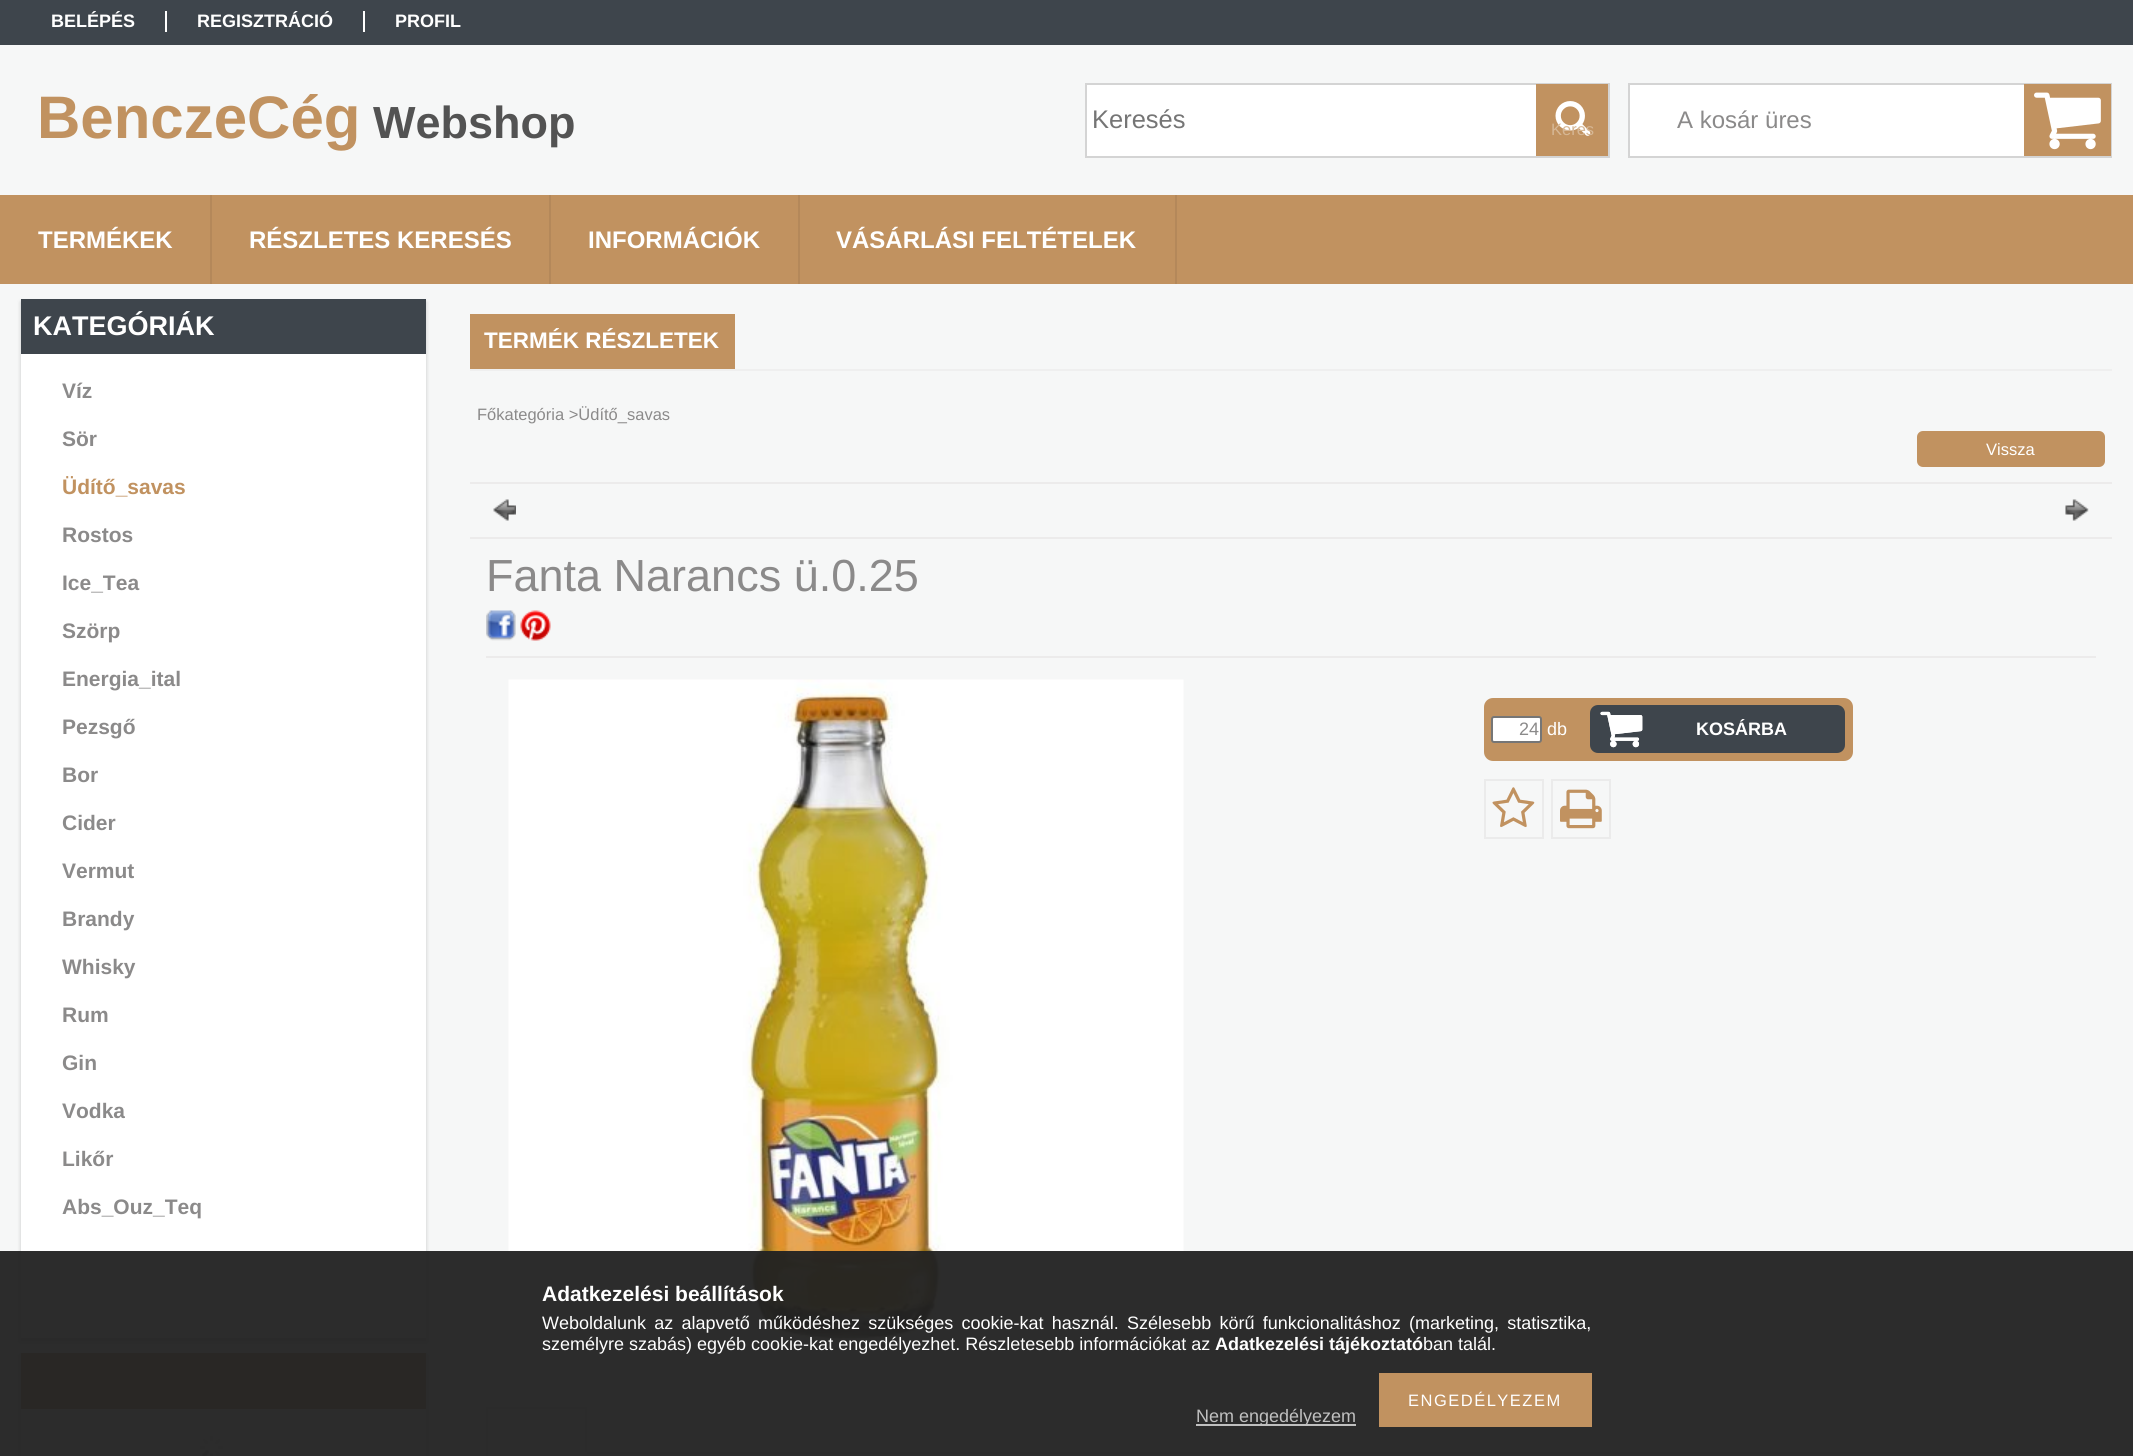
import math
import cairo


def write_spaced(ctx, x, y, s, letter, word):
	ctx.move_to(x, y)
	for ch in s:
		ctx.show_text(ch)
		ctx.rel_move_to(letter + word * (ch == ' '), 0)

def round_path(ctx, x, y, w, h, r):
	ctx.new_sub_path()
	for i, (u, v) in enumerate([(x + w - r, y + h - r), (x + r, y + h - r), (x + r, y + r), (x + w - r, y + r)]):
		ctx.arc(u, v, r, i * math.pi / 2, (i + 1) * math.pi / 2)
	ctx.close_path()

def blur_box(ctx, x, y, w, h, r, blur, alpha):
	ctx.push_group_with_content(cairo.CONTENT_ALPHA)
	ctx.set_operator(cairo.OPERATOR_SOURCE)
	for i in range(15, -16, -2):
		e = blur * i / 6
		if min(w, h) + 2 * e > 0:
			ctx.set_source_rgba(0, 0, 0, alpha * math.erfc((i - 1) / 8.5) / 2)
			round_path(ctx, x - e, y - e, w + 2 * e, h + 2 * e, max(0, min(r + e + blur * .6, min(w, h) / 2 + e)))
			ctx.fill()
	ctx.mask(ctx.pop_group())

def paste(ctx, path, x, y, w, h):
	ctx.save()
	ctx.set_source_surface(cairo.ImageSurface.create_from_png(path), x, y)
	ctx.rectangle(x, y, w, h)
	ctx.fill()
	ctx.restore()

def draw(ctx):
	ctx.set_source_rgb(0.961, 0.965, 0.965)
	ctx.paint()
	ctx.set_source_rgb(0.243, 0.271, 0.298)
	ctx.rectangle(0, 0, 2133, 45)
	ctx.fill()
	ctx.select_font_face('Liberation Sans', cairo.FONT_SLANT_NORMAL, cairo.FONT_WEIGHT_BOLD)
	ctx.set_font_size(18)
	ctx.set_source_rgb(1, 1, 1)
	ctx.move_to(51, 27)
	ctx.show_text('BELÉPÉS')
	ctx.rectangle(165, 11, 2, 21)
	ctx.fill()
	ctx.move_to(197, 27)
	ctx.show_text('REGISZTRÁCIÓ')
	ctx.rectangle(363, 11, 2, 21)
	ctx.fill()
	ctx.move_to(395, 27)
	ctx.show_text('PROFIL')
	ctx.set_font_size(60)
	ctx.set_source_rgb(0.757, 0.573, 0.376)
	ctx.move_to(37, 138)
	ctx.show_text('BenczeCég')
	ctx.set_font_size(45)
	ctx.set_source_rgb(0.325, 0.325, 0.325)
	ctx.move_to(373, 138)
	ctx.show_text('Webshop')
	ctx.set_source_rgb(1, 1, 1)
	ctx.rectangle(1087, 85, 449, 71)
	ctx.fill()
	ctx.rectangle(1086, 84, 523, 73)
	ctx.set_source_rgb(0.831, 0.831, 0.831)
	ctx.stroke()
	ctx.select_font_face('Liberation Sans')
	ctx.set_font_size(25.5)
	ctx.set_source_rgb(0.459, 0.459, 0.459)
	ctx.move_to(1092, 128)
	ctx.show_text('Keresés')
	ctx.set_source_rgb(0.757, 0.573, 0.376)
	ctx.rectangle(1536, 84, 72, 72)
	ctx.fill()
	paste(ctx, 'media/1.png', 1555, 101, 36, 35)
	ctx.set_font_size(16.5)
	ctx.set_source_rgb(0.839, 0.718, 0.584)
	ctx.move_to(1551, 135)
	ctx.show_text('Keres')
	ctx.set_source_rgb(1, 1, 1)
	ctx.rectangle(1630, 85, 394, 71)
	ctx.fill()
	ctx.rectangle(1629, 84, 482, 73)
	ctx.set_source_rgb(0.831, 0.831, 0.831)
	ctx.stroke()
	ctx.set_font_size(24)
	ctx.set_source_rgb(0.545, 0.541, 0.541)
	ctx.move_to(1677, 128)
	ctx.show_text('A kosár üres')
	ctx.set_source_rgb(0.757, 0.573, 0.376)
	ctx.rectangle(2024, 84, 87, 72)
	ctx.fill()
	paste(ctx, 'media/2.png', 2034, 92, 67, 58)
	ctx.rectangle(0, 195, 2133, 89)
	ctx.fill()
	ctx.save()
	ctx.rectangle(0, 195, 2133, 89)
	ctx.clip()
	ctx.set_fill_rule(cairo.FILL_RULE_EVEN_ODD)
	ctx.new_path()
	ctx.move_to(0, 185)
	ctx.line_to(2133, 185)
	ctx.line_to(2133, 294)
	ctx.line_to(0, 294)
	ctx.close_path()
	ctx.move_to(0, 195)
	ctx.line_to(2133, 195)
	ctx.line_to(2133, 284)
	ctx.line_to(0, 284)
	ctx.close_path()
	ctx.clip()
	ctx.set_source_rgb(0, 0, 0)
	blur_box(ctx, 6, 195, 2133, 89, 0, 3, 0.2)
	ctx.restore()
	ctx.set_source_rgba(0, 0, 0, 0.07)
	ctx.rectangle(210, 195, 2, 89)
	ctx.fill()
	ctx.select_font_face('Liberation Sans', cairo.FONT_SLANT_NORMAL, cairo.FONT_WEIGHT_BOLD)
	ctx.set_source_rgb(1, 1, 1)
	ctx.move_to(38, 248)
	ctx.show_text('TERMÉKEK')
	ctx.set_source_rgba(0, 0, 0, 0.07)
	ctx.rectangle(549, 195, 2, 89)
	ctx.fill()
	ctx.set_source_rgb(1, 1, 1)
	ctx.move_to(249, 248)
	ctx.show_text('RÉSZLETES KERESÉS')
	ctx.set_source_rgba(0, 0, 0, 0.07)
	ctx.rectangle(798, 195, 2, 89)
	ctx.fill()
	ctx.set_source_rgb(1, 1, 1)
	ctx.move_to(588, 248)
	ctx.show_text('INFORMÁCIÓK')
	ctx.set_source_rgba(0, 0, 0, 0.07)
	ctx.rectangle(1175, 195, 2, 89)
	ctx.fill()
	ctx.set_source_rgb(1, 1, 1)
	ctx.move_to(836, 248)
	ctx.show_text('VÁSÁRLÁSI FELTÉTELEK')
	ctx.set_source_rgb(0, 0, 0)
	blur_box(ctx, 21, 302, 405, 1039, 0, 2, 0.2)
	ctx.set_source_rgb(0.243, 0.271, 0.298)
	ctx.rectangle(21, 299, 405, 55)
	ctx.fill()
	ctx.set_font_size(27)
	ctx.set_source_rgb(1, 1, 1)
	ctx.move_to(33, 335)
	ctx.show_text('KATEGÓRIÁK')
	ctx.rectangle(21, 354, 405, 984)
	ctx.fill()
	ctx.set_font_size(21)
	ctx.set_source_rgb(0.545, 0.541, 0.541)
	ctx.move_to(62, 398)
	ctx.show_text('Víz')
	ctx.move_to(62, 446)
	ctx.show_text('Sör')
	ctx.set_source_rgb(0.757, 0.573, 0.376)
	ctx.move_to(62, 494)
	ctx.show_text('Üdítő_savas')
	ctx.set_source_rgb(0.545, 0.541, 0.541)
	for x, y, s in [
		(62, 542, 'Rostos'),
		(62, 590, 'Ice_Tea'),
		(62, 638, 'Szörp'),
		(62, 686, 'Energia_ital'),
		(62, 734, 'Pezsgő'),
		(62, 782, 'Bor'),
		(62, 830, 'Cider'),
		(62, 878, 'Vermut'),
		(62, 926, 'Brandy'),
		(62, 974, 'Whisky'),
		(62, 1022, 'Rum'),
		(62, 1070, 'Gin'),
		(62, 1118, 'Vodka'),
		(62, 1166, 'Likőr'),
		(62, 1214, 'Abs_Ouz_Teq'),
	]:
		ctx.move_to(x, y)
		ctx.show_text(s)
	ctx.set_source_rgb(0, 0, 0)
	blur_box(ctx, 21, 1356, 405, 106, 0, 2, 0.2)
	ctx.set_source_rgb(0.757, 0.573, 0.376)
	ctx.rectangle(21, 1353, 405, 56)
	ctx.fill()
	ctx.set_source_rgb(1, 1, 1)
	ctx.rectangle(21, 1409, 405, 47)
	ctx.fill()
	paste(ctx, 'media/3.png', 199, 1435, 25, 21)
	ctx.set_source_rgb(0.937, 0.937, 0.937)
	ctx.rectangle(470, 369, 1642, 2)
	ctx.fill()
	ctx.set_source_rgb(0.757, 0.573, 0.376)
	ctx.rectangle(470, 314, 265, 55)
	ctx.fill()
	ctx.set_font_size(22.5)
	ctx.set_source_rgb(1, 1, 1)
	ctx.move_to(484, 348)
	ctx.show_text('TERMÉK RÉSZLETEK')
	ctx.select_font_face('Liberation Sans')
	ctx.set_font_size(16.5)
	ctx.set_source_rgb(0.545, 0.541, 0.541)
	ctx.move_to(477, 420)
	ctx.show_text('Főkategória >Üdítő_savas')
	ctx.set_source_rgb(0.757, 0.573, 0.376)
	round_path(ctx, 1917, 431, 188, 36, 6)
	ctx.fill()
	ctx.set_source_rgb(1, 1, 1)
	ctx.move_to(1986, 455)
	ctx.show_text('Vissza')
	ctx.set_source_rgb(0.925, 0.918, 0.918)
	ctx.rectangle(470, 482, 1642, 2)
	ctx.fill()
	paste(ctx, 'media/4.png', 493, 499, 23, 22)
	paste(ctx, 'media/5.png', 2065, 499, 24, 22)
	ctx.rectangle(470, 537, 1642, 2)
	ctx.fill()
	ctx.rectangle(486, 656, 1610, 2)
	ctx.fill()
	ctx.set_font_size(45)
	ctx.set_source_rgb(0.545, 0.541, 0.541)
	ctx.move_to(486, 591)
	ctx.show_text('Fanta Narancs ü.0.25')
	paste(ctx, 'media/6.png', 486, 610, 30, 31)
	paste(ctx, 'media/7.png', 520, 610, 31, 31)
	paste(ctx, 'media/8.png', 508, 679, 676, 676)
	ctx.set_source_rgb(0.757, 0.573, 0.376)
	round_path(ctx, 1484, 698, 369, 63, 9)
	ctx.fill()
	ctx.set_source_rgb(1, 1, 1)
	round_path(ctx, 1492, 717, 49, 25, 2)
	ctx.fill_preserve()
	ctx.set_source_rgb(0.463, 0.463, 0.463)
	ctx.stroke()
	ctx.set_font_size(18)
	ctx.set_source_rgb(0.545, 0.541, 0.541)
	ctx.move_to(1519, 735)
	ctx.show_text('24')
	ctx.set_source_rgb(1, 1, 1)
	ctx.move_to(1547, 735)
	ctx.show_text('db')
	ctx.set_source_rgb(0.243, 0.271, 0.298)
	round_path(ctx, 1590, 705, 255, 48, 8)
	ctx.fill()
	paste(ctx, 'media/9.png', 1600, 711, 43, 37)
	paste(ctx, 'media/10.png', 1600, 711, 43, 37)
	ctx.select_font_face('Liberation Sans', cairo.FONT_SLANT_NORMAL, cairo.FONT_WEIGHT_BOLD)
	ctx.set_source_rgb(1, 1, 1)
	ctx.move_to(1696, 735)
	ctx.show_text('KOSÁRBA')
	ctx.rectangle(1485, 780, 58, 58)
	ctx.set_source_rgb(0.918, 0.918, 0.918)
	ctx.stroke()
	paste(ctx, 'media/11.png', 1492, 787, 43, 41)
	ctx.rectangle(1552, 780, 58, 58)
	ctx.stroke()
	paste(ctx, 'media/12.png', 1560, 789, 42, 40)
	ctx.set_source_rgb(0.937, 0.937, 0.937)
	ctx.rectangle(486, 1407, 101, 2)
	ctx.fill()
	ctx.rectangle(487, 1453, 1608, 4)
	ctx.stroke()
	ctx.rectangle(585, 1407, 2, 47)
	ctx.fill()
	ctx.set_source_rgb(0.961, 0.961, 0.961)
	ctx.rectangle(486, 1452, 101, 2)
	ctx.fill()
	ctx.set_source_rgb(0.937, 0.937, 0.937)
	ctx.rectangle(486, 1407, 2, 47)
	ctx.fill()
	ctx.set_source_rgba(0.133, 0.133, 0.133, 0.95)
	ctx.rectangle(0, 1251, 2133, 205)
	ctx.fill()
	ctx.set_font_size(21)
	ctx.set_source_rgb(1, 1, 1)
	ctx.move_to(542, 1301)
	ctx.show_text('Adatkezelési beállítások')
	ctx.select_font_face('Liberation Sans')
	ctx.set_font_size(18)
	write_spaced(ctx, 542, 1329, 'Weboldalunk az alapvető működéshez szükséges cookie-kat használ. Szélesebb körű funkcionalitáshoz (marketing, statisztika,', 0, 3.25)
	ctx.move_to(542, 1350)
	ctx.show_text('személyre szabás) egyéb cookie-kat engedélyezhet. Részletesebb információkat az')
	ctx.select_font_face('Liberation Sans', cairo.FONT_SLANT_NORMAL, cairo.FONT_WEIGHT_BOLD)
	ctx.move_to(1215, 1350)
	ctx.show_text('Adatkezelési tájékoztató')
	ctx.select_font_face('Liberation Sans')
	ctx.move_to(1423, 1350)
	ctx.show_text('ban talál.')
	ctx.set_source_rgb(0.757, 0.573, 0.376)
	ctx.rectangle(1379, 1373, 213, 54)
	ctx.fill()
	ctx.set_font_size(16.5)
	ctx.set_source_rgb(1, 1, 1)
	write_spaced(ctx, 1408, 1406, 'ENGEDÉLYEZEM', 1.5, 0)
	ctx.set_source_rgb(0.753, 0.753, 0.753)
	ctx.rectangle(1196, 1424, 160, 2)
	ctx.fill()
	ctx.set_font_size(18)
	ctx.move_to(1196, 1422)
	ctx.show_text('Nem engedélyezem')


surface = cairo.ImageSurface(cairo.FORMAT_RGB24, 2133, 1456)
ctx = cairo.Context(surface)
options = cairo.FontOptions()
options.set_hint_metrics(cairo.HINT_METRICS_OFF)
options.set_hint_style(cairo.HINT_STYLE_NONE)
ctx.set_font_options(options)
ctx.set_miter_limit(4)
draw(ctx)
surface.write_to_png('image.png')
